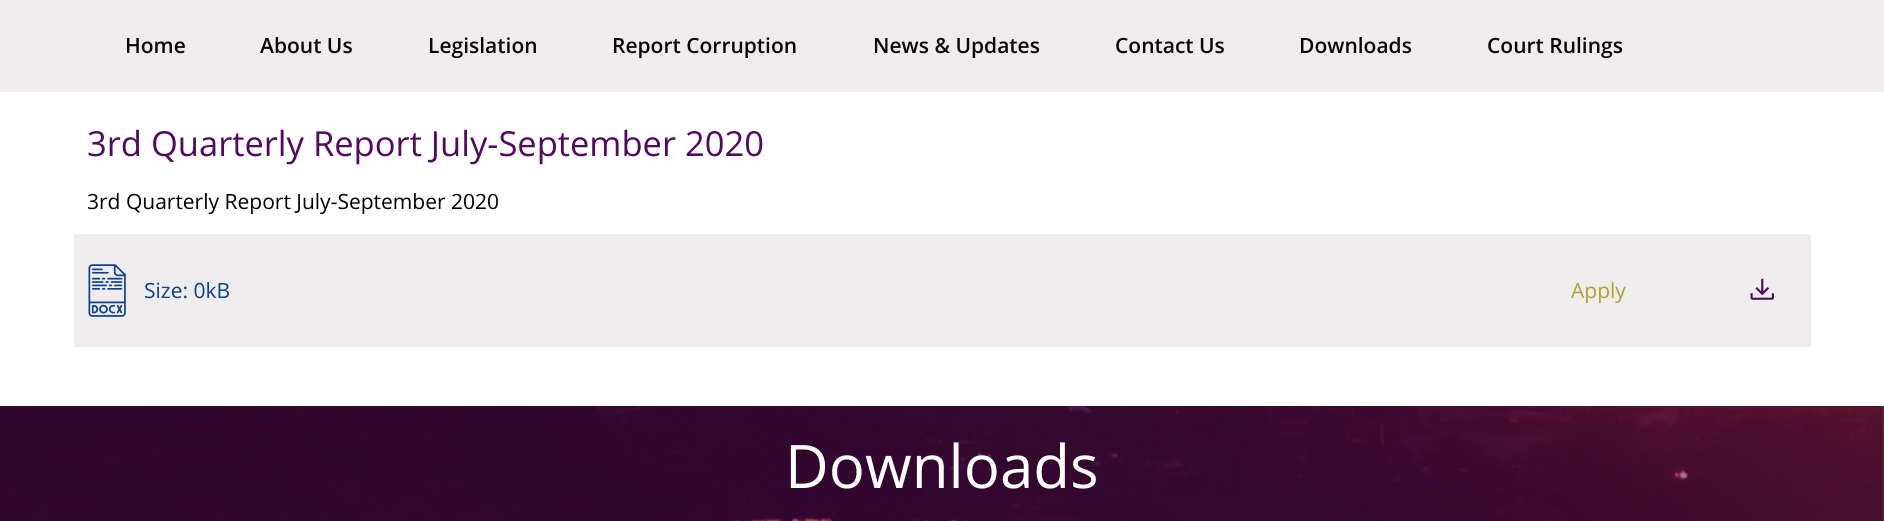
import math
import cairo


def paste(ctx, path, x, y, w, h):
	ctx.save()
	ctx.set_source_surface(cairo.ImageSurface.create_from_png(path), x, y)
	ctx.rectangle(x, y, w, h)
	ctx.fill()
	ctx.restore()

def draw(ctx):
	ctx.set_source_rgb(1, 1, 1)
	ctx.paint()
	ctx.set_source_rgb(0.937, 0.925, 0.933)
	ctx.rectangle(0, 0, 1884, 92)
	ctx.fill()
	ctx.select_font_face('Open Sans SemiBold')
	ctx.set_font_size(21)
	ctx.set_source_rgb(0.039, 0.024, 0.031)
	for x, y, s in [
		(125, 53, 'Home'),
		(260, 53, 'About Us'),
		(428, 53, 'Legislation'),
		(612, 53, 'Report Corruption'),
		(873, 53, 'News & Updates'),
		(1115, 53, 'Contact Us'),
		(1299, 53, 'Downloads'),
		(1487, 53, 'Court Rulings'),
	]:
		ctx.move_to(x, y)
		ctx.show_text(s)
	ctx.select_font_face('Open Sans')
	ctx.set_font_size(34.5)
	ctx.set_source_rgb(0.318, 0.039, 0.38)
	ctx.move_to(87, 156)
	ctx.show_text('3rd Quarterly Report July-September 2020')
	ctx.set_font_size(21)
	ctx.set_source_rgb(0, 0, 0)
	ctx.move_to(87, 209)
	ctx.show_text('3rd Quarterly Report July-September 2020')
	ctx.set_source_rgb(0.937, 0.925, 0.933)
	ctx.rectangle(74, 234, 1737, 113)
	ctx.fill()
	paste(ctx, 'media/1.png', 88, 264, 38, 53)
	ctx.set_source_rgb(0.039, 0.259, 0.557)
	ctx.move_to(144, 298)
	ctx.show_text('Size: 0kB')
	ctx.set_source_rgb(0.678, 0.639, 0.161)
	ctx.move_to(1571, 298)
	ctx.show_text('Apply')
	paste(ctx, 'media/2.png', 1750, 278, 24, 22)
	paste(ctx, 'media/3.png', 0, 406, 1884, 115)
	ctx.set_font_size(60)
	ctx.set_source_rgb(1, 1, 1)
	ctx.move_to(785, 488)
	ctx.show_text('Downloads')


surface = cairo.ImageSurface(cairo.FORMAT_RGB24, 1884, 521)
ctx = cairo.Context(surface)
options = cairo.FontOptions()
options.set_hint_metrics(cairo.HINT_METRICS_OFF)
options.set_hint_style(cairo.HINT_STYLE_NONE)
ctx.set_font_options(options)
ctx.set_miter_limit(4)
draw(ctx)
surface.write_to_png('image.png')
